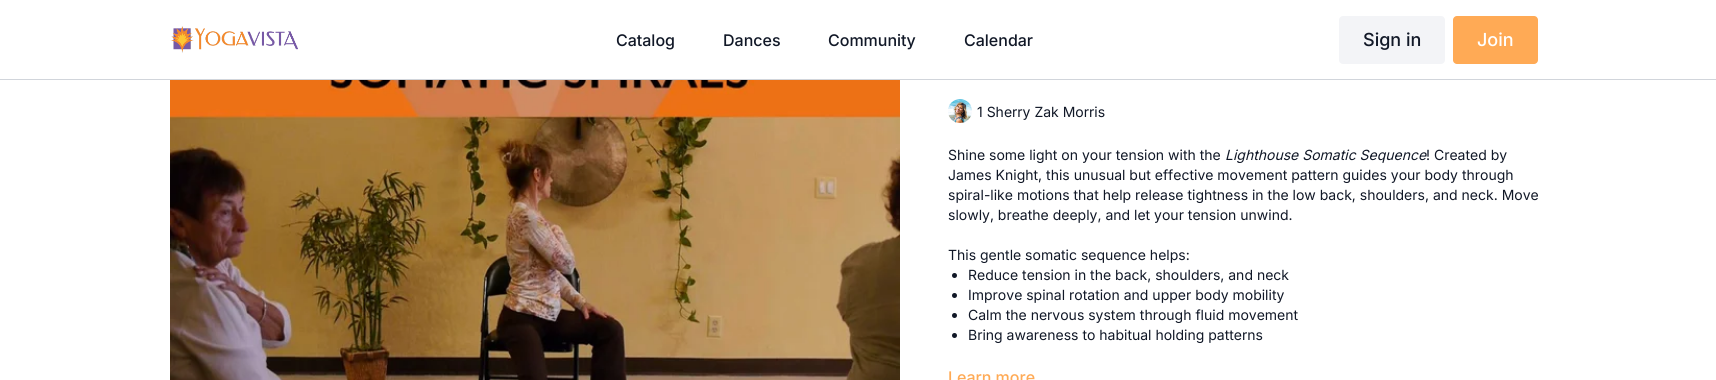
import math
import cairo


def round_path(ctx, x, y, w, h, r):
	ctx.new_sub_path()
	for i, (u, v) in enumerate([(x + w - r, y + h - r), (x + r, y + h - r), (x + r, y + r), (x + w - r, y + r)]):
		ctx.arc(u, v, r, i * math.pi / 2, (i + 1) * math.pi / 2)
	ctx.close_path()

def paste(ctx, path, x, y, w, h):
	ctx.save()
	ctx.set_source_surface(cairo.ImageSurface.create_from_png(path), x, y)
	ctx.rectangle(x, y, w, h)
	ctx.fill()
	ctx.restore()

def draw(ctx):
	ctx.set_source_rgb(1, 1, 1)
	ctx.paint()
	ctx.set_source_rgb(0.82, 0.835, 0.859)
	ctx.rectangle(0, 79, 1716, 1)
	ctx.fill()
	paste(ctx, 'media/1.png', 170, 26, 128, 27)
	ctx.select_font_face('Inter Medium')
	ctx.set_font_size(16)
	ctx.set_source_rgb(0.067, 0.094, 0.153)
	for x, y, s in [
		(616, 46, 'Catalog'),
		(723, 46, 'Dances'),
		(828, 46, 'Community'),
		(964, 46, 'Calendar'),
	]:
		ctx.move_to(x, y)
		ctx.show_text(s)
	ctx.set_source_rgb(0.953, 0.957, 0.965)
	round_path(ctx, 1339, 16, 106, 48, 4)
	ctx.fill()
	ctx.set_font_size(18)
	ctx.set_source_rgb(0.067, 0.094, 0.153)
	ctx.move_to(1363, 46)
	ctx.show_text('Sign in')
	ctx.set_source_rgb(1, 0.667, 0.333)
	round_path(ctx, 1453, 16, 85, 48, 4)
	ctx.fill()
	ctx.set_source_rgb(1, 1, 1)
	ctx.move_to(1477, 46)
	ctx.show_text('Join')
	paste(ctx, 'media/2.png', 170, 80, 730, 300)
	paste(ctx, 'media/3.png', 948, 99, 24, 24)
	ctx.select_font_face('Inter')
	ctx.set_font_size(14)
	ctx.set_source_rgb(0.067, 0.094, 0.153)
	ctx.move_to(977, 117)
	ctx.show_text('1 Sherry Zak Morris')
	ctx.move_to(948, 160)
	ctx.show_text('Shine some light on your tension with the')
	ctx.select_font_face('Inter', cairo.FONT_SLANT_ITALIC)
	ctx.move_to(1225, 160)
	ctx.show_text('Lighthouse Somatic Sequence')
	ctx.select_font_face('Inter')
	for x, y, s in [
		(1426, 160, '! Created by'),
		(948, 180, 'James Knight, this unusual but effective movement pattern guides your body through'),
		(948, 200, 'spiral-like motions that help release tightness in the low back, shoulders, and neck. Move'),
		(948, 220, 'slowly, breathe deeply, and let your tension unwind.'),
		(948, 260, 'This gentle somatic sequence helps:'),
	]:
		ctx.move_to(x, y)
		ctx.show_text(s)
	ctx.new_path()
	ctx.arc(954.5, 275.5, 2.5, 0, 2 * math.pi)
	ctx.fill()
	ctx.move_to(968, 280)
	ctx.show_text('Reduce tension in the back, shoulders, and neck')
	ctx.new_path()
	ctx.arc(954.5, 295.5, 2.5, 0, 2 * math.pi)
	ctx.fill()
	ctx.move_to(968, 300)
	ctx.show_text('Improve spinal rotation and upper body mobility')
	ctx.new_path()
	ctx.arc(954.5, 315.5, 2.5, 0, 2 * math.pi)
	ctx.fill()
	ctx.move_to(968, 320)
	ctx.show_text('Calm the nervous system through fluid movement')
	ctx.new_path()
	ctx.arc(954.5, 335.5, 2.5, 0, 2 * math.pi)
	ctx.fill()
	ctx.move_to(968, 340)
	ctx.show_text('Bring awareness to habitual holding patterns')
	ctx.select_font_face('Inter Medium')
	ctx.set_font_size(16)
	ctx.set_source_rgb(1, 0.667, 0.333)
	ctx.move_to(948, 383)
	ctx.show_text('Learn more')


surface = cairo.ImageSurface(cairo.FORMAT_RGB24, 1716, 380)
ctx = cairo.Context(surface)
options = cairo.FontOptions()
options.set_hint_metrics(cairo.HINT_METRICS_OFF)
options.set_hint_style(cairo.HINT_STYLE_NONE)
ctx.set_font_options(options)
ctx.set_miter_limit(4)
draw(ctx)
surface.write_to_png('image.png')
